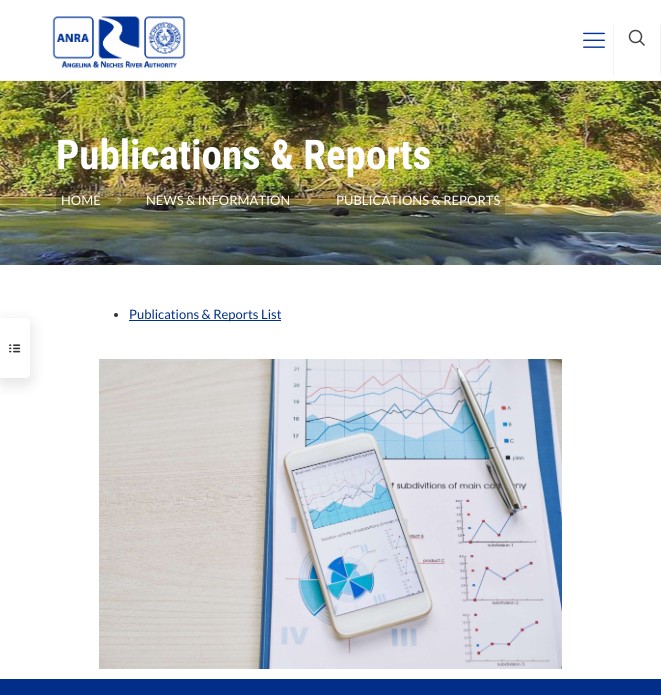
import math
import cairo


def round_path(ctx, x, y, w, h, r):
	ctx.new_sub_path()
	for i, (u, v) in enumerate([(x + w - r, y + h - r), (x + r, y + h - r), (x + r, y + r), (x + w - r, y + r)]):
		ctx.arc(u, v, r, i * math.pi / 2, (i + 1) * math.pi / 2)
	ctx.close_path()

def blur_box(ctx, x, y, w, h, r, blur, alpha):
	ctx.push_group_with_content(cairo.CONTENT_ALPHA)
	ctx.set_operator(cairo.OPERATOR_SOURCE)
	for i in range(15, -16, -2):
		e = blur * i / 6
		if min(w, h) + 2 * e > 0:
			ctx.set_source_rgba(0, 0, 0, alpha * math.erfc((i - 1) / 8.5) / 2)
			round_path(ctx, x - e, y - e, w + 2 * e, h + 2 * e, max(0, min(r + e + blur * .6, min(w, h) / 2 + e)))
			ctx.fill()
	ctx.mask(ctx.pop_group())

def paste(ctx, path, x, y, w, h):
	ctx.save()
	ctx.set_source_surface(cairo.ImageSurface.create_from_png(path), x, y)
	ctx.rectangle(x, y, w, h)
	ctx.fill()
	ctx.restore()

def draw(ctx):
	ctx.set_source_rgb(1, 1, 1)
	ctx.paint()
	paste(ctx, 'media/1.png', 0, 81, 661, 184)
	ctx.set_source_rgb(0.949, 0.949, 0.949)
	ctx.rectangle(0, 80, 661, 1)
	ctx.fill()
	paste(ctx, 'media/2.png', 52, 16, 134, 52)
	paste(ctx, 'media/3.png', 583, 32, 22, 16)
	ctx.rectangle(660, 25, 1, 50)
	ctx.fill()
	ctx.rectangle(613, 25, 1, 50)
	ctx.fill()
	ctx.arc(635.5, 36.5, 6, 0, 2 * math.pi)
	ctx.set_source_rgb(0.267, 0.267, 0.267)
	ctx.set_line_width(1.5)
	ctx.stroke()
	ctx.new_path()
	ctx.move_to(639.5, 40.5)
	ctx.line_to(644.5, 45.5)
	ctx.stroke()
	ctx.select_font_face('Roboto Condensed', cairo.FONT_SLANT_NORMAL, cairo.FONT_WEIGHT_BOLD)
	ctx.set_font_size(41)
	ctx.set_source_rgb(1, 1, 1)
	ctx.move_to(56, 169)
	ctx.show_text('Publications & Reports')
	ctx.set_source_rgba(0, 0, 0, 0.15)
	ctx.rectangle(56, 186, 85, 29)
	ctx.fill()
	ctx.select_font_face('Lato')
	ctx.set_font_size(13)
	ctx.set_source_rgb(1, 1, 1)
	ctx.move_to(61, 205)
	ctx.show_text('HOME')
	paste(ctx, 'media/4.png', 117, 196, 5, 9)
	ctx.set_source_rgba(0, 0, 0, 0.15)
	ctx.rectangle(141, 186, 190, 29)
	ctx.fill()
	ctx.set_source_rgb(1, 1, 1)
	ctx.move_to(146, 205)
	ctx.show_text('NEWS & INFORMATION')
	paste(ctx, 'media/5.png', 307, 196, 5, 9)
	ctx.set_source_rgba(0, 0, 0, 0.15)
	ctx.rectangle(331, 186, 174, 29)
	ctx.fill()
	ctx.set_source_rgb(1, 1, 1)
	ctx.move_to(336, 205)
	ctx.show_text('PUBLICATIONS & REPORTS')
	ctx.set_source_rgb(0.2, 0.2, 0.2)
	ctx.new_path()
	ctx.arc(116, 315, 2, 0, 2 * math.pi)
	ctx.fill()
	ctx.set_source_rgb(0, 0.18, 0.537)
	ctx.rectangle(129, 320, 152, 1)
	ctx.fill()
	ctx.move_to(129, 319)
	ctx.show_text('Publications & Reports List')
	paste(ctx, 'media/6.png', 99, 359, 463, 310)
	ctx.rectangle(0, 679, 661, 16)
	ctx.fill()
	ctx.set_source_rgb(0.031, 0.031, 0.055)
	blur_box(ctx, 0, 323, 30, 60, 4, 7.5, 0.13)
	ctx.set_source_rgb(1, 1, 1)
	ctx.new_path()
	ctx.move_to(0, 318)
	ctx.line_to(26, 318)
	ctx.curve_to(28, 318, 30, 320, 30, 322)
	ctx.line_to(30, 374)
	ctx.curve_to(30, 376, 28, 378, 26, 378)
	ctx.line_to(0, 378)
	ctx.close_path()
	ctx.fill()
	paste(ctx, 'media/7.png', 9, 344, 12, 9)


surface = cairo.ImageSurface(cairo.FORMAT_RGB24, 661, 695)
ctx = cairo.Context(surface)
options = cairo.FontOptions()
options.set_hint_metrics(cairo.HINT_METRICS_OFF)
options.set_hint_style(cairo.HINT_STYLE_NONE)
ctx.set_font_options(options)
ctx.set_miter_limit(4)
draw(ctx)
surface.write_to_png('image.png')
